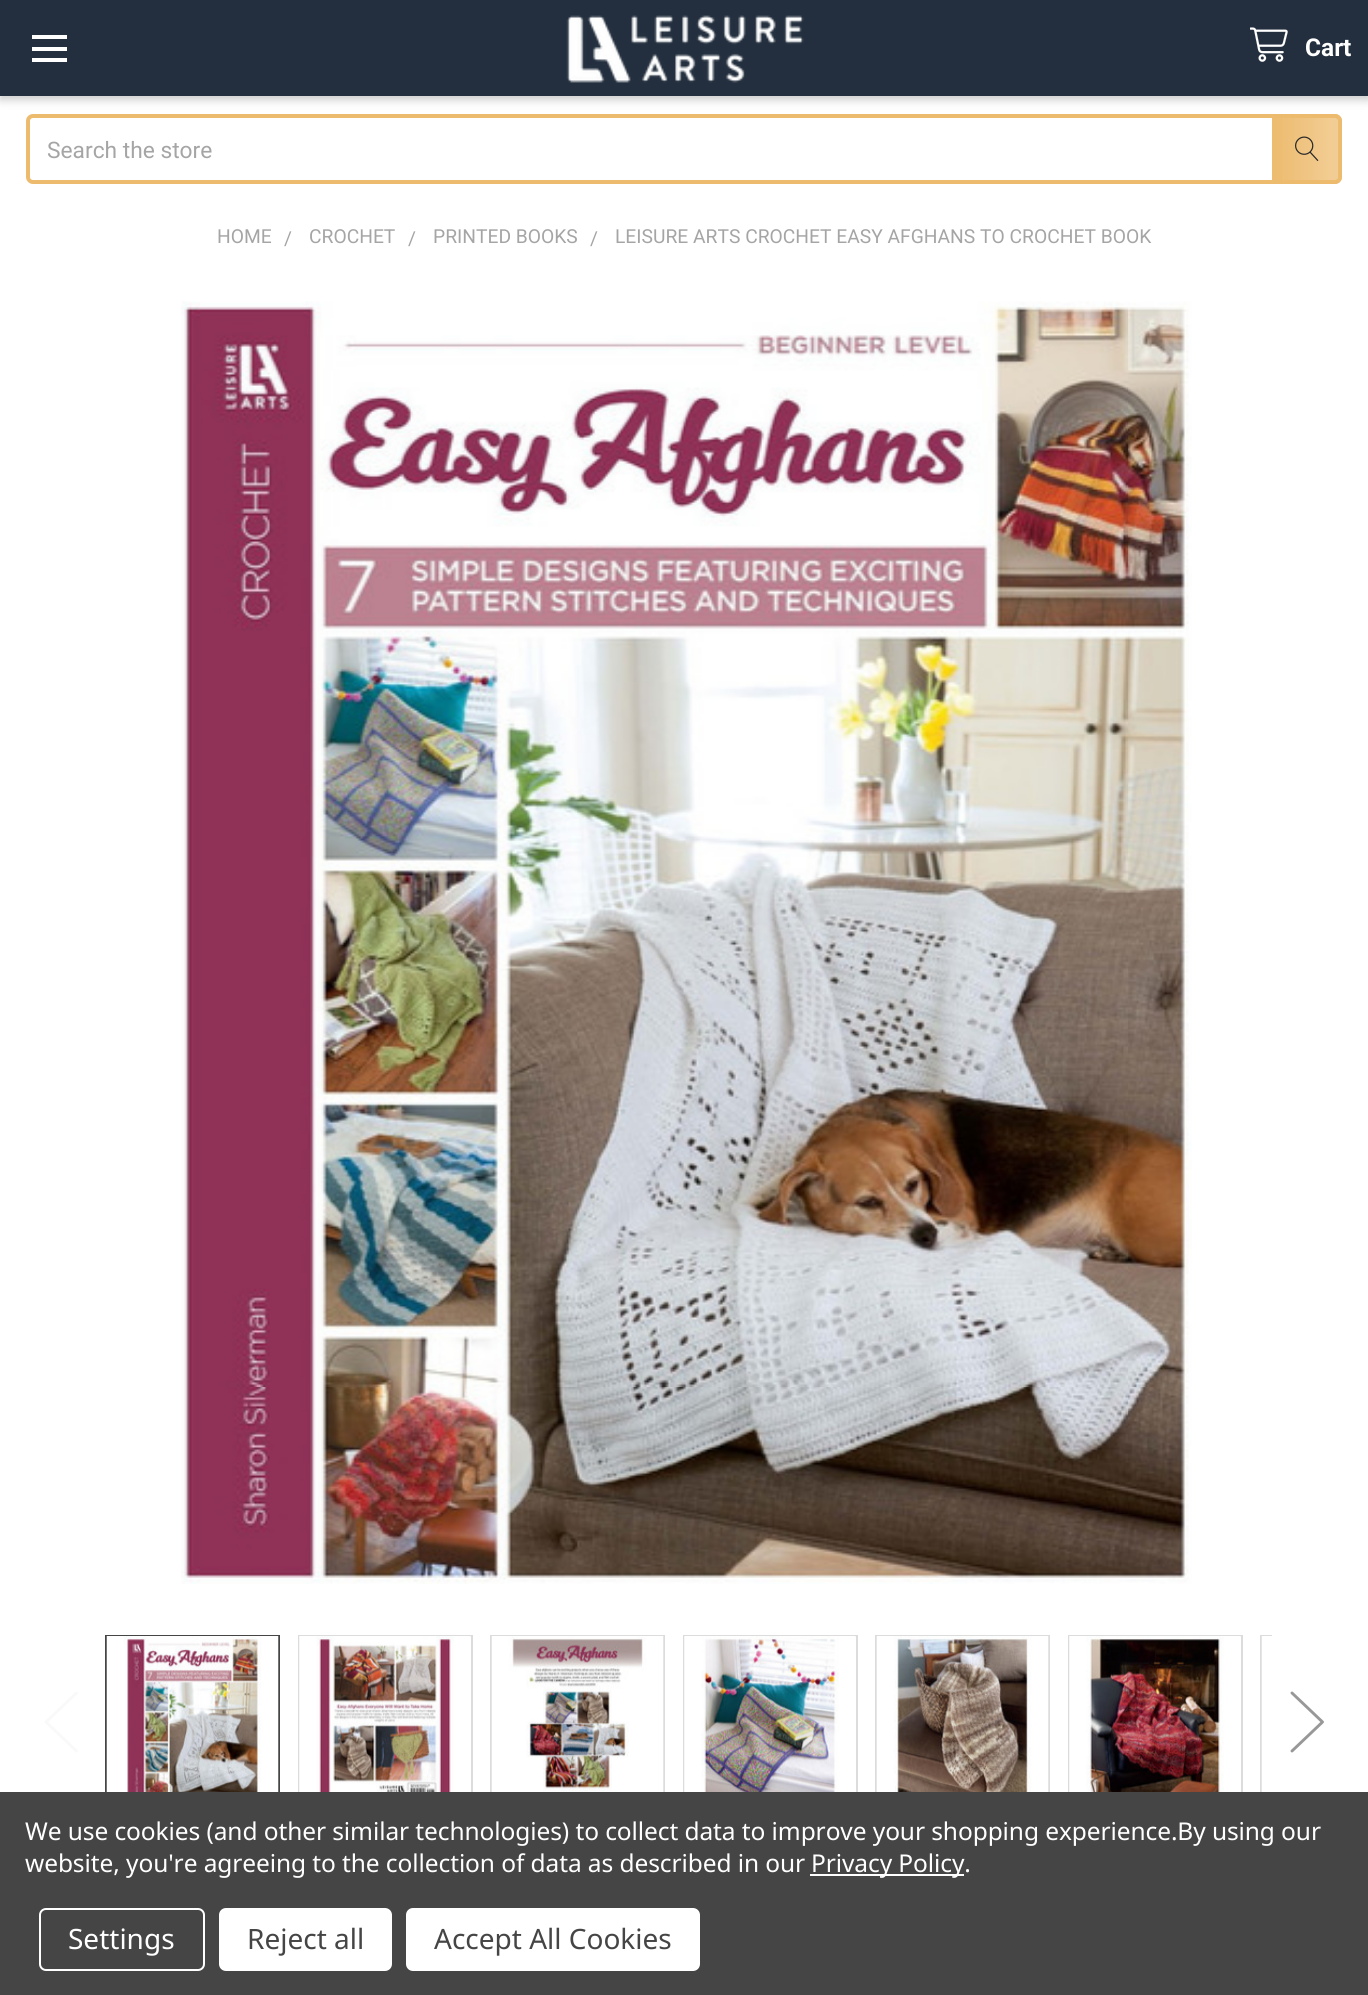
import math
import cairo


def write_spaced(ctx, x, y, s, letter, word):
	ctx.move_to(x, y)
	for ch in s:
		ctx.show_text(ch)
		ctx.rel_move_to(letter + word * (ch == ' '), 0)

def round_path(ctx, x, y, w, h, r):
	ctx.new_sub_path()
	for i, (u, v) in enumerate([(x + w - r, y + h - r), (x + r, y + h - r), (x + r, y + r), (x + w - r, y + r)]):
		ctx.arc(u, v, r, i * math.pi / 2, (i + 1) * math.pi / 2)
	ctx.close_path()

def blur_box(ctx, x, y, w, h, r, blur, alpha):
	ctx.push_group_with_content(cairo.CONTENT_ALPHA)
	ctx.set_operator(cairo.OPERATOR_SOURCE)
	for i in range(15, -16, -2):
		e = blur * i / 6
		if min(w, h) + 2 * e > 0:
			ctx.set_source_rgba(0, 0, 0, alpha * math.erfc((i - 1) / 8.5) / 2)
			round_path(ctx, x - e, y - e, w + 2 * e, h + 2 * e, max(0, min(r + e + blur * .6, min(w, h) / 2 + e)))
			ctx.fill()
	ctx.mask(ctx.pop_group())

def paste(ctx, path, x, y, w, h):
	ctx.save()
	ctx.set_source_surface(cairo.ImageSurface.create_from_png(path), x, y)
	ctx.rectangle(x, y, w, h)
	ctx.fill()
	ctx.restore()

def draw(ctx):
	ctx.set_source_rgb(1, 1, 1)
	ctx.paint()
	round_path(ctx, 28, 116, 1312, 66, 5)
	ctx.set_source_rgb(0.929, 0.733, 0.431)
	ctx.set_line_width(4)
	ctx.stroke()
	gradient = cairo.LinearGradient(1272, 149, 1342, 149)
	gradient.add_color_stop_rgba(0, 0.929, 0.733, 0.431, 1)
	gradient.add_color_stop_rgba(1, 0.929, 0.733, 0.431, 0.7)
	ctx.set_source(gradient)
	ctx.new_path()
	ctx.move_to(1272, 114)
	ctx.line_to(1335, 114)
	ctx.curve_to(1339, 114, 1342, 117, 1342, 121)
	ctx.line_to(1342, 177)
	ctx.curve_to(1342, 181, 1339, 184, 1335, 184)
	ctx.line_to(1272, 184)
	ctx.close_path()
	ctx.fill()
	ctx.set_source_rgb(0, 0, 0)
	blur_box(ctx, 0, 4, 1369, 96, 0, 4.5, 0.2)
	ctx.set_source_rgb(0.137, 0.184, 0.243)
	ctx.rectangle(0, 0, 1368, 96)
	ctx.fill()
	ctx.set_source_rgb(1, 1, 1)
	ctx.rectangle(32, 47, 35, 4)
	ctx.rectangle(32, 35, 35, 4)
	ctx.rectangle(32, 58, 35, 4)
	ctx.fill()
	paste(ctx, 'media/1.png', 566, 15, 238, 68)
	paste(ctx, 'media/2.png', 1250, 27, 38, 35)
	ctx.select_font_face('Roboto', cairo.FONT_SLANT_NORMAL, cairo.FONT_WEIGHT_BOLD)
	ctx.set_font_size(24.5)
	ctx.move_to(1305, 56)
	ctx.show_text('Cart')
	ctx.select_font_face('Roboto')
	ctx.set_font_size(22.75)
	ctx.set_source_rgb(0.647, 0.647, 0.647)
	ctx.move_to(47, 158)
	ctx.show_text('Search the store')
	paste(ctx, 'media/3.png', 1295, 136, 24, 25)
	ctx.set_font_size(19.25)
	for x, y, s in [
		(217, 243, 'HOME'),
		(284, 245, '/'),
		(309, 243, 'CROCHET'),
		(408, 245, '/'),
		(433, 243, 'PRINTED BOOKS'),
		(590, 245, '/'),
		(615, 243, 'LEISURE ARTS CROCHET EASY AFGHANS TO CROCHET BOOK'),
	]:
		ctx.move_to(x, y)
		ctx.show_text(s)
	paste(ctx, 'media/4.png', 181, 301, 1011, 1283)
	ctx.save()
	ctx.rectangle(44, 1692, 35, 62)
	ctx.clip()
	ctx.new_path()
	ctx.move_to(76.5, 1693)
	ctx.line_to(46, 1722)
	ctx.line_to(76.5, 1751)
	ctx.set_source_rgb(0.976, 0.976, 0.976)
	ctx.set_line_width(2.9)
	ctx.set_line_cap(cairo.LINE_CAP_ROUND)
	ctx.set_line_join(cairo.LINE_JOIN_ROUND)
	ctx.stroke()
	ctx.restore()
	ctx.rectangle(106, 1636, 173, 173)
	ctx.set_source_rgb(0.271, 0.271, 0.271)
	ctx.set_line_width(2)
	ctx.stroke()
	paste(ctx, 'media/5.png', 106, 1636, 173, 156)
	ctx.rectangle(299, 1636, 173, 173)
	ctx.set_source_rgb(0.863, 0.863, 0.863)
	ctx.stroke()
	paste(ctx, 'media/6.png', 299, 1636, 172, 156)
	ctx.rectangle(491, 1636, 173, 173)
	ctx.stroke()
	paste(ctx, 'media/7.png', 491, 1636, 173, 156)
	ctx.rectangle(684, 1636, 173, 173)
	ctx.stroke()
	paste(ctx, 'media/8.png', 684, 1636, 172, 156)
	ctx.rectangle(876, 1636, 173, 173)
	ctx.stroke()
	paste(ctx, 'media/9.png', 876, 1636, 173, 156)
	ctx.rectangle(1069, 1636, 173, 173)
	ctx.stroke()
	paste(ctx, 'media/10.png', 1069, 1636, 172, 156)
	ctx.save()
	ctx.rectangle(96, 1635, 1176, 175)
	ctx.clip()
	ctx.rectangle(1261, 1636, 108, 173)
	ctx.stroke()
	ctx.restore()
	paste(ctx, 'media/11.png', 1261, 1636, 11, 156)
	ctx.new_path()
	ctx.move_to(1292, 1693)
	ctx.line_to(1322.5, 1722)
	ctx.line_to(1292, 1751)
	ctx.set_source_rgb(0.596, 0.596, 0.596)
	ctx.set_line_width(2.9)
	ctx.set_line_cap(cairo.LINE_CAP_ROUND)
	ctx.set_line_join(cairo.LINE_JOIN_ROUND)
	ctx.stroke()
	ctx.set_source_rgb(0.271, 0.271, 0.271)
	ctx.rectangle(0, 1792, 1368, 203)
	ctx.fill()
	ctx.select_font_face('Noto Sans')
	ctx.set_font_size(24.5)
	ctx.set_source_rgb(1, 1, 1)
	write_spaced(ctx, 25, 1840, 'We use cookies (and other similar technologies) to collect data to improve your shopping experience.By using our', -0.09, 0)
	write_spaced(ctx, 25, 1872, 'website, you\'re agreeing to the collection of data as described in our', -0.09, 0)
	ctx.rectangle(810, 1874, 154, 2)
	ctx.fill()
	write_spaced(ctx, 811, 1872, 'Privacy Policy.', -0.09, 0)
	round_path(ctx, 40, 1909, 164, 61, 6)
	ctx.set_line_width(2)
	ctx.set_line_cap(cairo.LINE_CAP_BUTT)
	ctx.set_line_join(cairo.LINE_JOIN_MITER)
	ctx.stroke()
	ctx.set_font_size(28)
	ctx.move_to(68, 1949)
	ctx.show_text('Settings')
	round_path(ctx, 219, 1908, 173, 63, 7)
	ctx.fill()
	ctx.set_source_rgb(0.271, 0.271, 0.271)
	ctx.move_to(247, 1949)
	ctx.show_text('Reject all')
	ctx.set_source_rgb(1, 1, 1)
	round_path(ctx, 406, 1908, 294, 63, 7)
	ctx.fill()
	ctx.set_source_rgb(0.271, 0.271, 0.271)
	ctx.move_to(434, 1949)
	ctx.show_text('Accept All Cookies')


surface = cairo.ImageSurface(cairo.FORMAT_RGB24, 1368, 1995)
ctx = cairo.Context(surface)
options = cairo.FontOptions()
options.set_hint_metrics(cairo.HINT_METRICS_OFF)
options.set_hint_style(cairo.HINT_STYLE_NONE)
ctx.set_font_options(options)
ctx.set_miter_limit(4)
draw(ctx)
surface.write_to_png('image.png')
